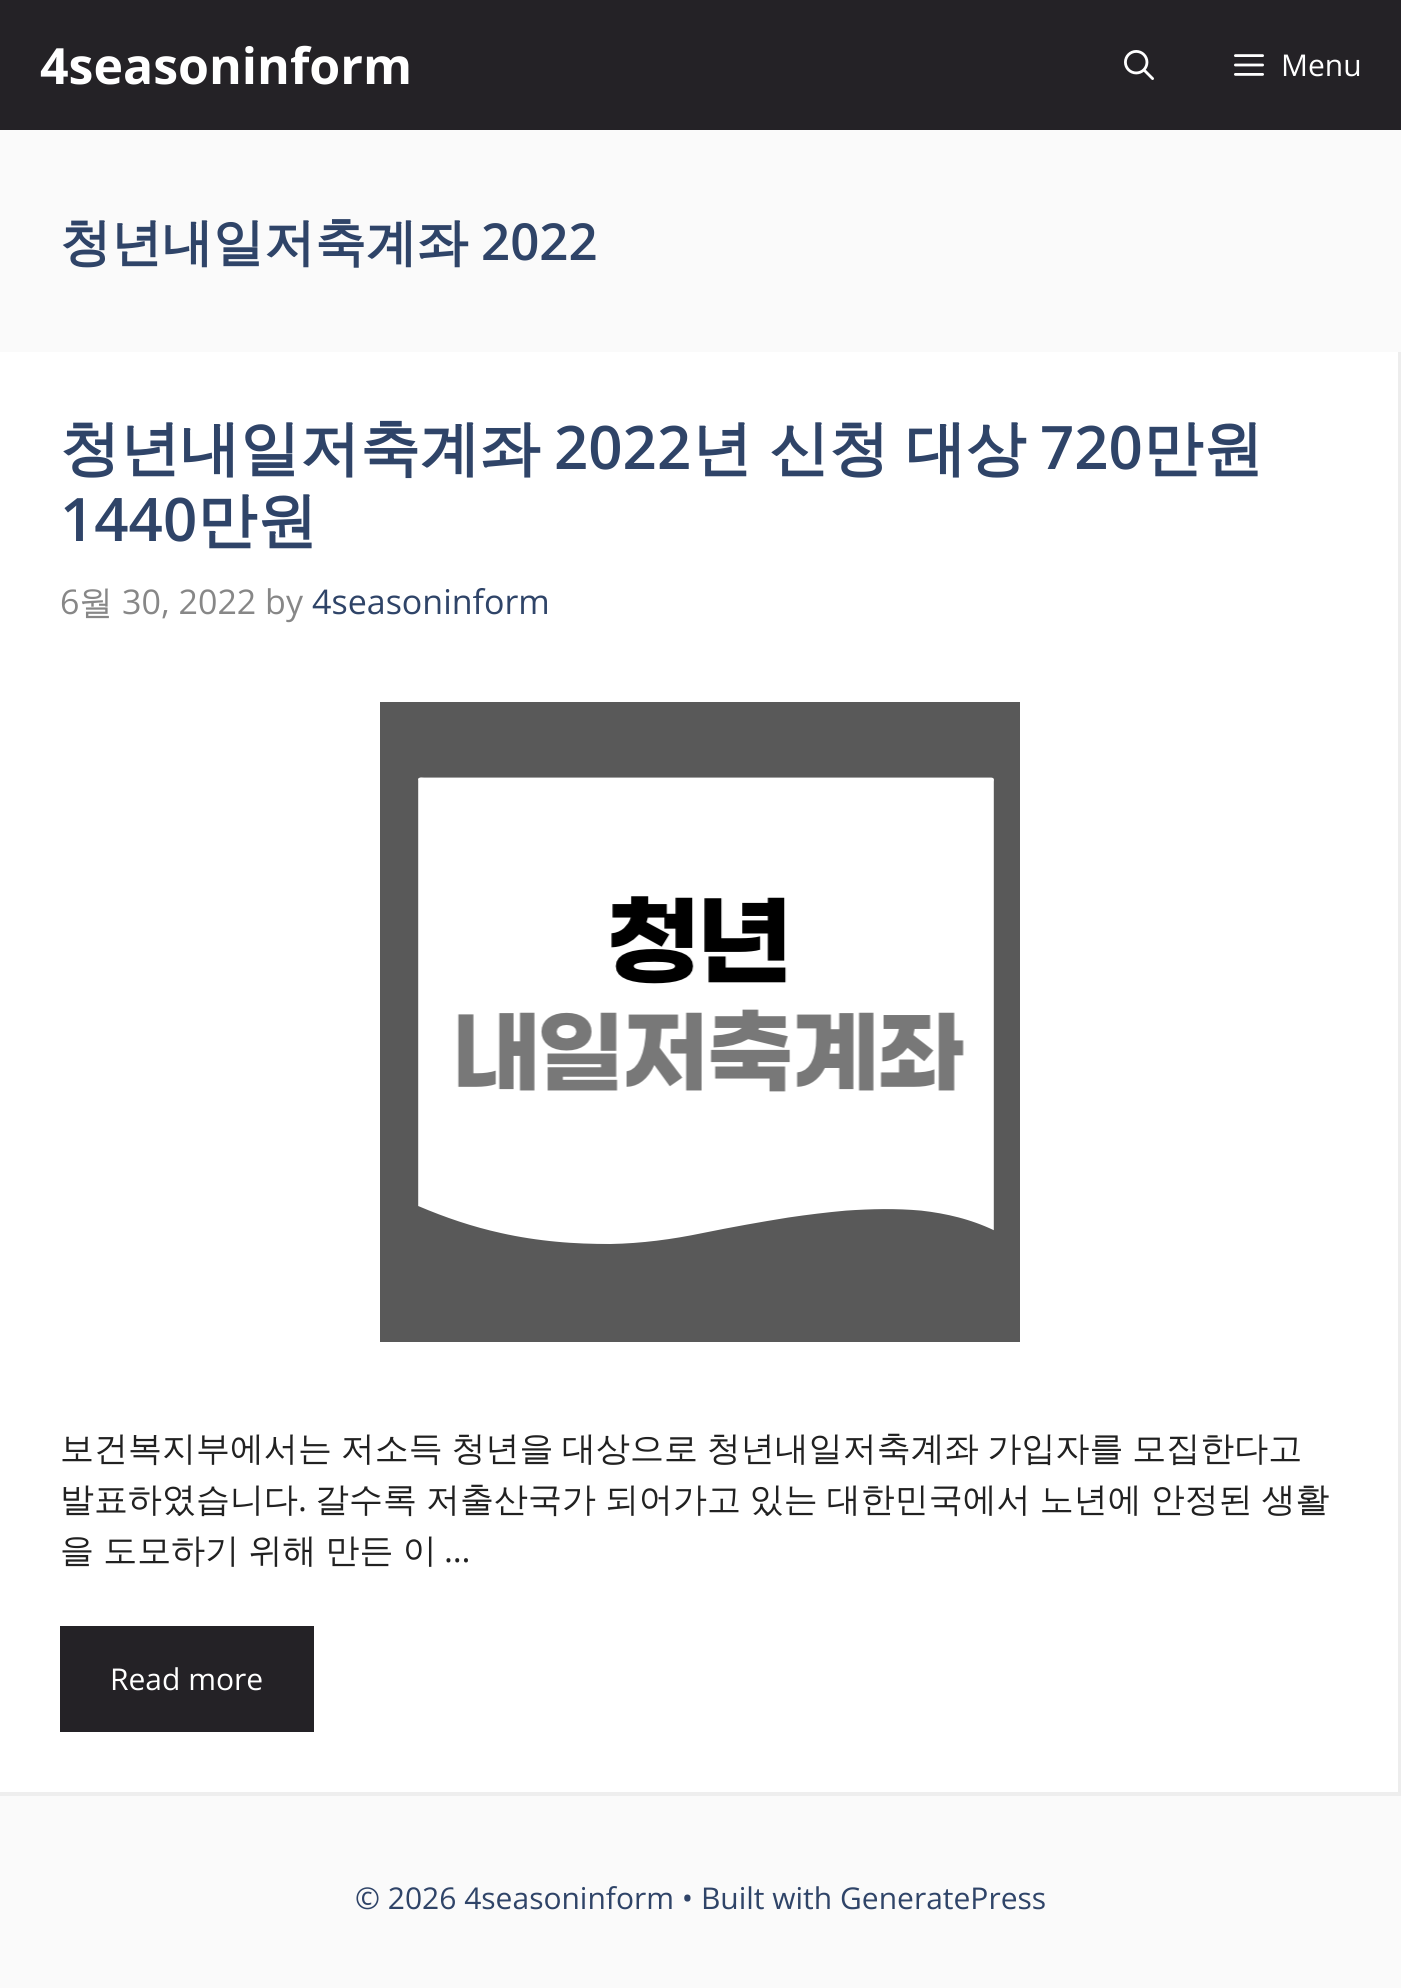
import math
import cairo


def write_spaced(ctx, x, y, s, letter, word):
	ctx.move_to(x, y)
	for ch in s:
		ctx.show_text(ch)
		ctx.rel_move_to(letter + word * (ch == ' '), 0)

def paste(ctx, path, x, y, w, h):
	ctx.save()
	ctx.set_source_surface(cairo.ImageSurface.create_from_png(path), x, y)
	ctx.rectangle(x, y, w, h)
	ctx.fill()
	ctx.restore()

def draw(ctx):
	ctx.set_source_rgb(0.98, 0.98, 0.98)
	ctx.paint()
	ctx.set_source_rgb(0.141, 0.133, 0.149)
	ctx.rectangle(0, 0, 1401, 130)
	ctx.fill()
	ctx.select_font_face('Open Sans', cairo.FONT_SLANT_NORMAL, cairo.FONT_WEIGHT_BOLD)
	ctx.set_font_size(50)
	ctx.set_source_rgb(1, 1, 1)
	ctx.move_to(40, 84)
	ctx.show_text('4seasoninform')
	paste(ctx, 'media/1.png', 1124, 50, 30, 30)
	paste(ctx, 'media/2.png', 1234, 54, 30, 22)
	ctx.select_font_face('Open Sans')
	ctx.set_font_size(30)
	ctx.move_to(1281, 76)
	ctx.show_text('Menu')
	ctx.select_font_face('WenQuanYi Zen Hei', cairo.FONT_SLANT_NORMAL, cairo.FONT_WEIGHT_BOLD)
	ctx.set_font_size(51)
	ctx.set_source_rgb(0.184, 0.267, 0.408)
	ctx.move_to(60, 260)
	ctx.show_text('청년내일저축계좌')
	ctx.select_font_face('Open Sans SemiBold')
	ctx.move_to(481, 260)
	ctx.show_text('2022')
	ctx.set_source_rgb(1, 1, 1)
	ctx.rectangle(0, 352, 1401, 1444)
	ctx.fill()
	ctx.set_source_rgb(0.929, 0.929, 0.929)
	ctx.new_path()
	ctx.move_to(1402, 352)
	ctx.line_to(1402, 1796)
	ctx.line_to(1398, 1792)
	ctx.line_to(1398, 352)
	ctx.close_path()
	ctx.fill()
	ctx.set_source_rgba(0, 0, 0, 0.07)
	ctx.new_path()
	ctx.move_to(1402, 1796)
	ctx.line_to(0, 1796)
	ctx.line_to(0, 1792)
	ctx.line_to(1398, 1792)
	ctx.close_path()
	ctx.fill()
	ctx.select_font_face('WenQuanYi Zen Hei', cairo.FONT_SLANT_NORMAL, cairo.FONT_WEIGHT_BOLD)
	ctx.set_font_size(60)
	ctx.set_source_rgb(0.184, 0.267, 0.408)
	ctx.move_to(60, 469)
	ctx.show_text('청년내일저축계좌')
	ctx.select_font_face('Open Sans SemiBold')
	ctx.move_to(554, 469)
	ctx.show_text('2022')
	ctx.select_font_face('WenQuanYi Zen Hei', cairo.FONT_SLANT_NORMAL, cairo.FONT_WEIGHT_BOLD)
	write_spaced(ctx, 692, 469, '년 신청 대상', 0, -1)
	ctx.select_font_face('Open Sans SemiBold')
	ctx.move_to(1040, 469)
	ctx.show_text('720')
	ctx.select_font_face('WenQuanYi Zen Hei', cairo.FONT_SLANT_NORMAL, cairo.FONT_WEIGHT_BOLD)
	ctx.move_to(1143, 469)
	ctx.show_text('만원')
	ctx.select_font_face('Open Sans SemiBold')
	ctx.move_to(60, 541)
	ctx.show_text('1440')
	ctx.select_font_face('WenQuanYi Zen Hei', cairo.FONT_SLANT_NORMAL, cairo.FONT_WEIGHT_BOLD)
	ctx.move_to(197, 541)
	ctx.show_text('만원')
	ctx.select_font_face('Open Sans')
	ctx.set_font_size(34)
	ctx.set_source_rgb(0.529, 0.529, 0.529)
	ctx.move_to(60, 614)
	ctx.show_text('6')
	ctx.select_font_face('WenQuanYi Zen Hei Medium')
	ctx.move_to(79, 614)
	ctx.show_text('월')
	ctx.select_font_face('Open Sans')
	ctx.move_to(122, 614)
	ctx.show_text('30, 2022 by')
	ctx.set_source_rgb(0.184, 0.267, 0.408)
	ctx.move_to(312, 614)
	ctx.show_text('4seasoninform')
	paste(ctx, 'media/3.png', 380, 702, 640, 640)
	ctx.select_font_face('WenQuanYi Zen Hei Medium')
	ctx.set_source_rgb(0.129, 0.129, 0.129)
	write_spaced(ctx, 60, 1460, '보건복지부에서는 저소득 청년을 대상으로 청년내일저축계좌 가입자를 모집한다고', 0, -1.5)
	ctx.move_to(60, 1511)
	ctx.show_text('발표하였습니다')
	ctx.select_font_face('Open Sans')
	ctx.move_to(298, 1511)
	ctx.show_text('.')
	ctx.select_font_face('WenQuanYi Zen Hei Medium')
	write_spaced(ctx, 315, 1511, '갈수록 저출산국가 되어가고 있는 대한민국에서 노년에 안정된 생활', 0, -1.25)
	write_spaced(ctx, 60, 1562, '을 도모하기 위해 만든 이', 0, -1)
	ctx.select_font_face('Open Sans')
	ctx.move_to(444, 1562)
	ctx.show_text('…')
	ctx.set_source_rgb(0.141, 0.133, 0.149)
	ctx.rectangle(60, 1626, 254, 106)
	ctx.fill()
	ctx.set_font_size(30)
	ctx.set_source_rgb(1, 1, 1)
	ctx.move_to(110, 1690)
	ctx.show_text('Read more')
	ctx.set_source_rgb(0.184, 0.267, 0.408)
	ctx.move_to(355, 1909)
	ctx.show_text('© 2026 4seasoninform • Built with GeneratePress')


surface = cairo.ImageSurface(cairo.FORMAT_RGB24, 1401, 1988)
ctx = cairo.Context(surface)
options = cairo.FontOptions()
options.set_hint_metrics(cairo.HINT_METRICS_OFF)
options.set_hint_style(cairo.HINT_STYLE_NONE)
ctx.set_font_options(options)
ctx.set_miter_limit(4)
draw(ctx)
surface.write_to_png('image.png')
